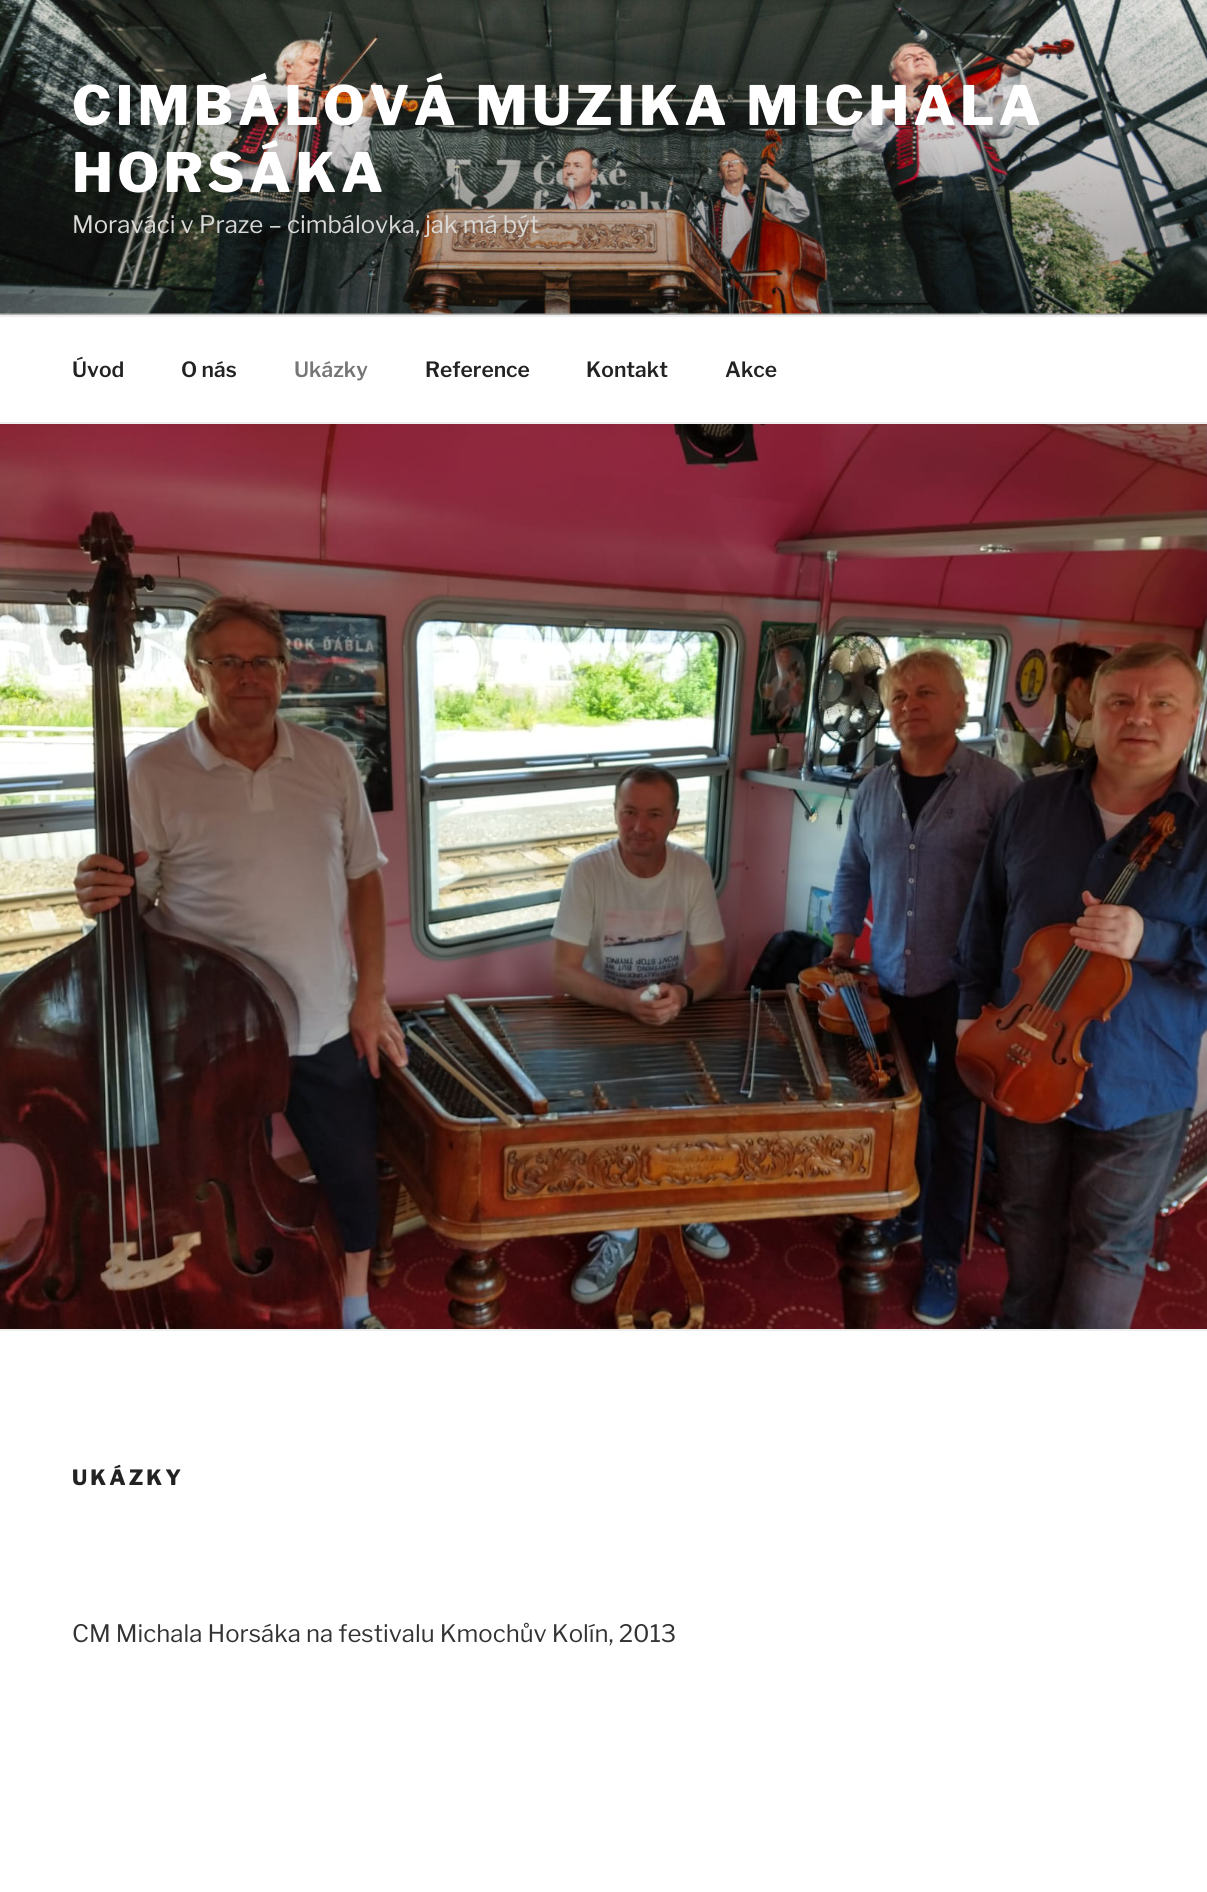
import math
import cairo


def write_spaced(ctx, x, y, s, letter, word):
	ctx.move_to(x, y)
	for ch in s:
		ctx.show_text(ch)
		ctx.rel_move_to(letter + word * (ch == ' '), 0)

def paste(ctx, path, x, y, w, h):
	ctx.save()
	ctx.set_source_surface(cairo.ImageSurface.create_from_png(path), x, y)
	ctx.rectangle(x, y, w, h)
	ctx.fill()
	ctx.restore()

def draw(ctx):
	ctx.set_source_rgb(1, 1, 1)
	ctx.paint()
	ctx.set_source_rgb(0.98, 0.98, 0.98)
	ctx.rectangle(0, 313, 1207, 2)
	ctx.fill()
	paste(ctx, 'media/1.png', 0, 0, 1207, 314)
	gradient = cairo.LinearGradient(604, 0, 604, 315)
	gradient.add_color_stop_rgba(0, 0, 0, 0, 0)
	gradient.add_color_stop_rgba(0.75, 0, 0, 0, 0.3)
	gradient.add_color_stop_rgba(1, 0, 0, 0, 0.3)
	ctx.set_source(gradient)
	ctx.rectangle(0, 17, 1207, 298)
	ctx.fill()
	ctx.select_font_face('Libre Franklin Thin')
	ctx.set_font_size(54)
	ctx.set_source_rgb(1, 1, 1)
	write_spaced(ctx, 72, 125, 'CIMBÁLOVÁ MUZIKA MICHALA', 4.3, 0)
	write_spaced(ctx, 72, 192, 'HORSÁKA', 4.3, 0)
	ctx.select_font_face('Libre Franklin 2 Thin')
	ctx.set_font_size(24)
	ctx.set_source_rgb(0.851, 0.851, 0.843)
	ctx.move_to(72, 233)
	ctx.show_text('Moraváci v Praze – cimbálovka, jak má být')
	ctx.set_source_rgb(0.933, 0.933, 0.933)
	ctx.rectangle(0, 315, 1207, 2)
	ctx.fill()
	ctx.rectangle(0, 422, 1207, 2)
	ctx.fill()
	ctx.select_font_face('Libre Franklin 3 Thin')
	ctx.set_font_size(21)
	ctx.set_source_rgb(0.133, 0.133, 0.133)
	ctx.move_to(72, 377)
	ctx.show_text('Úvod')
	ctx.move_to(181, 377)
	ctx.show_text('O nás')
	ctx.set_source_rgb(0.463, 0.463, 0.463)
	ctx.move_to(294, 377)
	ctx.show_text('Ukázky')
	ctx.set_source_rgb(0.133, 0.133, 0.133)
	for x, y, s in [
		(425, 377, 'Reference'),
		(586, 377, 'Kontakt'),
		(725, 377, 'Akce'),
	]:
		ctx.move_to(x, y)
		ctx.show_text(s)
	ctx.set_source_rgb(0.933, 0.933, 0.933)
	ctx.rectangle(0, 1329, 1207, 2)
	ctx.fill()
	paste(ctx, 'media/2.png', 0, 424, 1207, 905)
	ctx.select_font_face('Libre Franklin Thin')
	ctx.set_source_rgb(0.133, 0.133, 0.133)
	write_spaced(ctx, 72, 1485, 'UKÁZKY', 3, 0)
	ctx.select_font_face('Libre Franklin 2 Thin')
	ctx.set_font_size(24)
	ctx.set_source_rgb(0.2, 0.2, 0.2)
	ctx.move_to(72, 1642)
	ctx.show_text('CM Michala Horsáka na festivalu Kmochův Kolín, 2013')


surface = cairo.ImageSurface(cairo.FORMAT_RGB24, 1207, 1892)
ctx = cairo.Context(surface)
options = cairo.FontOptions()
options.set_hint_metrics(cairo.HINT_METRICS_OFF)
options.set_hint_style(cairo.HINT_STYLE_NONE)
ctx.set_font_options(options)
ctx.set_miter_limit(4)
draw(ctx)
surface.write_to_png('image.png')
